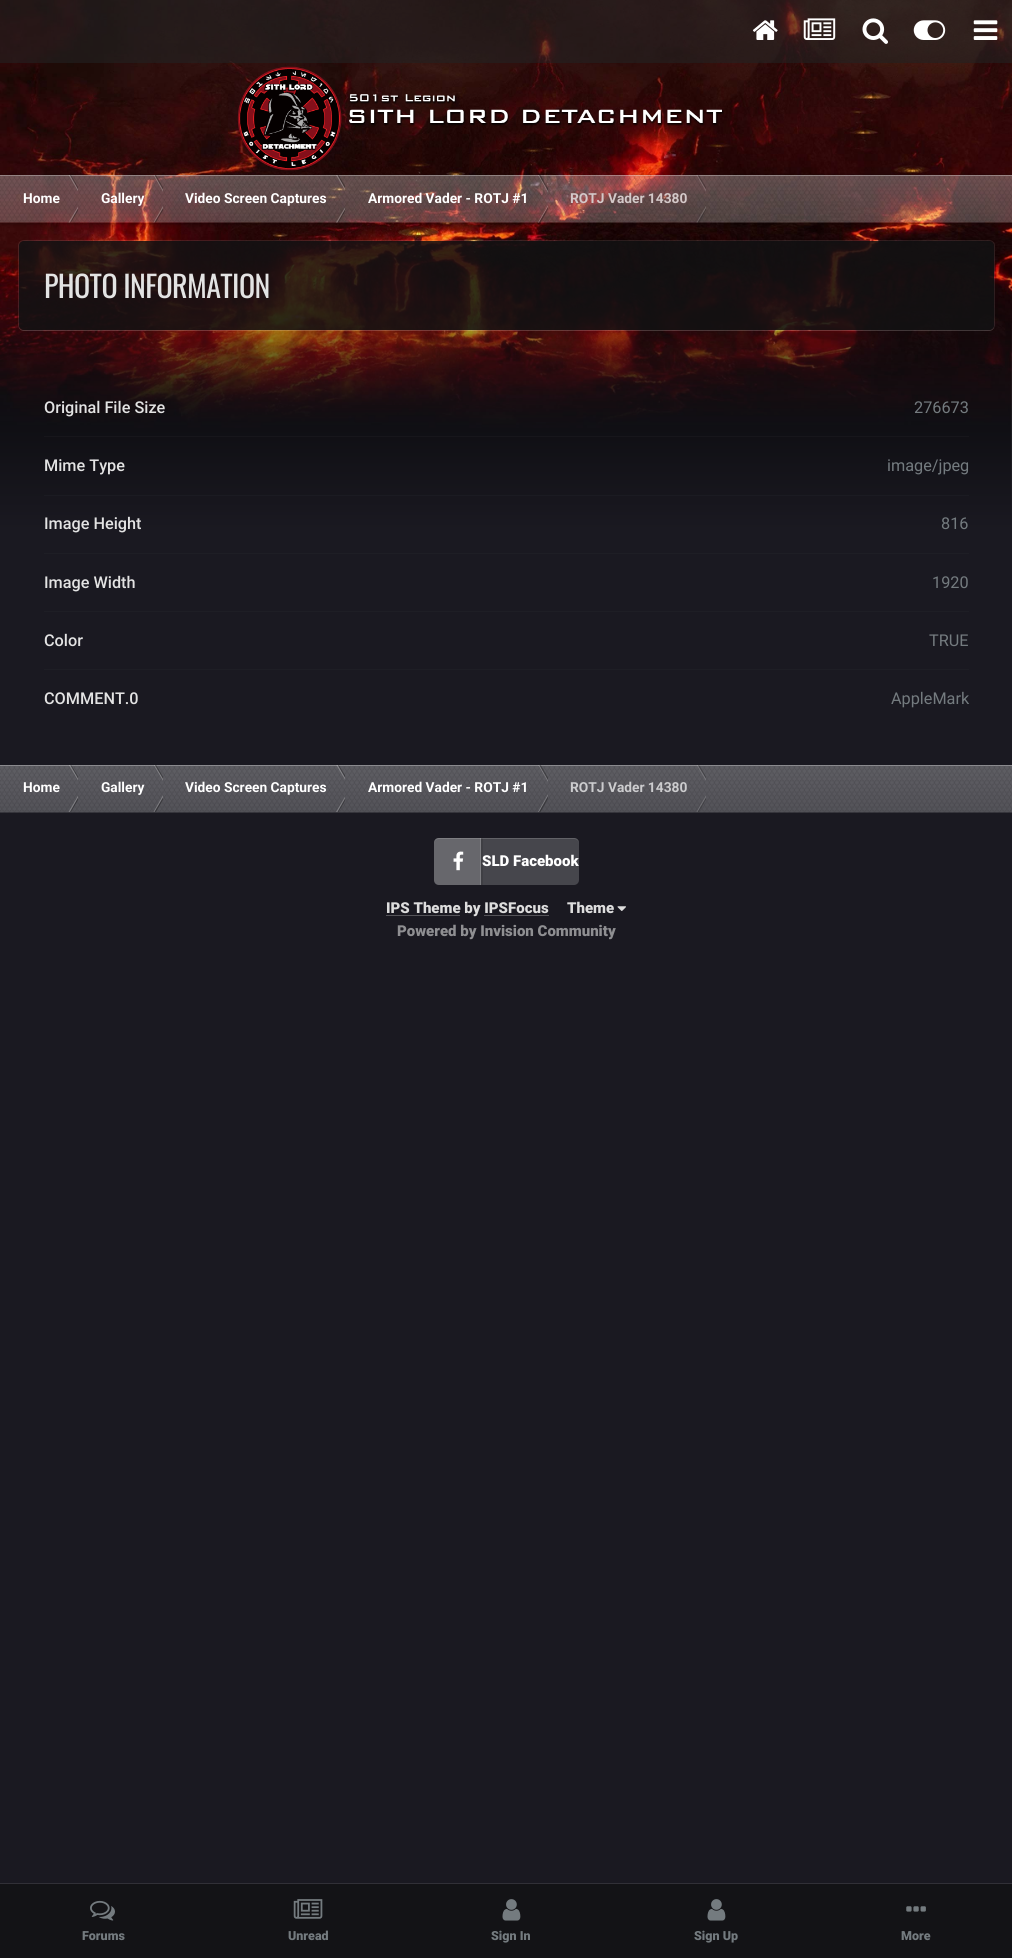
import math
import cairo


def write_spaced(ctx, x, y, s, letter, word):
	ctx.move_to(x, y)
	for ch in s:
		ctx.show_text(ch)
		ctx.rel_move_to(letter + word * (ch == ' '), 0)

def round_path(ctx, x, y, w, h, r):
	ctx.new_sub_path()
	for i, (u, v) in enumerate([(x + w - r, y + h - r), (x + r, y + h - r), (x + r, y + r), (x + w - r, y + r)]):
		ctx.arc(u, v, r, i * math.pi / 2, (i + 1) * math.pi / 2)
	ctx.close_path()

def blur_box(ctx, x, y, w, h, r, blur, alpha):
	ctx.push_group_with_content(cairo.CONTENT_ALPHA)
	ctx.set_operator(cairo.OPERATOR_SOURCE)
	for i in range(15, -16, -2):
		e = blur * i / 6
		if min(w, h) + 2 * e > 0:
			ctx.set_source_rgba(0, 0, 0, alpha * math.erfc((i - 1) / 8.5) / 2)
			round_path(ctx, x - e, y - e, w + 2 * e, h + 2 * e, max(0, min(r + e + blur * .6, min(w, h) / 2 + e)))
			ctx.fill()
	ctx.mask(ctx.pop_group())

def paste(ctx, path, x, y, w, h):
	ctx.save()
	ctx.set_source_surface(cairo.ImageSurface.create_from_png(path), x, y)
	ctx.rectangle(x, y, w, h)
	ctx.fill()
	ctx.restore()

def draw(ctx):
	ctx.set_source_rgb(0.102, 0.098, 0.129)
	ctx.paint()
	paste(ctx, 'media/1.png', 0, 0, 1012, 529)
	gradient = cairo.LinearGradient(506, 272, 506, 544)
	gradient.add_color_stop_rgba(0, 0.102, 0.098, 0.129, 0)
	gradient.add_color_stop_rgba(0.95, 0.102, 0.098, 0.129, 1)
	ctx.set_source(gradient)
	ctx.rectangle(0, 278, 1012, 251)
	ctx.fill()
	ctx.set_source_rgba(0.133, 0.133, 0.133, 0.6)
	ctx.rectangle(0, 0, 1012, 63)
	ctx.fill()
	paste(ctx, 'media/2.png', 752, 20, 26, 20)
	paste(ctx, 'media/3.png', 803, 18, 33, 22)
	paste(ctx, 'media/4.png', 862, 18, 26, 26)
	paste(ctx, 'media/5.png', 913, 20, 33, 20)
	paste(ctx, 'media/6.png', 973, 20, 25, 20)
	ctx.save()
	ctx.set_fill_rule(cairo.FILL_RULE_EVEN_ODD)
	ctx.new_path()
	ctx.move_to(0, 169)
	ctx.line_to(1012, 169)
	ctx.line_to(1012, 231)
	ctx.line_to(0, 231)
	ctx.close_path()
	ctx.move_to(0, 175)
	ctx.line_to(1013, 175)
	ctx.line_to(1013, 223)
	ctx.line_to(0, 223)
	ctx.close_path()
	ctx.clip()
	ctx.set_source_rgb(0, 0, 0)
	blur_box(ctx, 0, 176, 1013, 48, 0, 2, 0.3)
	ctx.restore()
	paste(ctx, 'media/7.png', 237, 66, 487, 105)
	paste(ctx, 'media/8.png', 0, 175, 1012, 48)
	ctx.set_source_rgba(1, 1, 1, 0.3)
	ctx.rectangle(0, 175, 1012, 1)
	ctx.fill()
	ctx.save()
	ctx.rectangle(0, 175, 78, 48)
	ctx.clip()
	ctx.set_source_rgba(1, 1, 1, 0.25)
	ctx.new_path()
	ctx.move_to(68.5, 175)
	ctx.line_to(70, 175)
	ctx.line_to(83.5, 199)
	ctx.line_to(82.5, 199)
	ctx.close_path()
	ctx.fill()
	ctx.set_source_rgba(0, 0, 0, 0.3)
	ctx.new_path()
	ctx.move_to(70, 175)
	ctx.line_to(71, 175)
	ctx.line_to(85, 199)
	ctx.line_to(83.5, 199)
	ctx.close_path()
	ctx.fill()
	ctx.restore()
	ctx.select_font_face('Roboto', cairo.FONT_SLANT_NORMAL, cairo.FONT_WEIGHT_BOLD)
	ctx.set_font_size(13.75)
	ctx.set_source_rgb(1, 1, 1)
	ctx.move_to(23, 203)
	ctx.show_text('Home')
	ctx.save()
	ctx.rectangle(0, 175, 78, 48)
	ctx.clip()
	ctx.set_source_rgba(1, 1, 1, 0.25)
	ctx.new_path()
	ctx.move_to(68.5, 222.5)
	ctx.line_to(70, 222.5)
	ctx.line_to(83.5, 199)
	ctx.line_to(82.5, 199)
	ctx.close_path()
	ctx.fill()
	ctx.set_source_rgba(0, 0, 0, 0.3)
	ctx.new_path()
	ctx.move_to(70, 222.5)
	ctx.line_to(71, 222.5)
	ctx.line_to(85, 199)
	ctx.line_to(83.5, 199)
	ctx.close_path()
	ctx.fill()
	ctx.restore()
	ctx.save()
	ctx.rectangle(78, 175, 85, 48)
	ctx.clip()
	ctx.set_source_rgba(1, 1, 1, 0.25)
	ctx.new_path()
	ctx.move_to(153.5, 175)
	ctx.line_to(154.5, 175)
	ctx.line_to(168.5, 199)
	ctx.line_to(167, 199)
	ctx.close_path()
	ctx.fill()
	ctx.set_source_rgba(0, 0, 0, 0.3)
	ctx.new_path()
	ctx.move_to(154.5, 175)
	ctx.line_to(156, 175)
	ctx.line_to(169.5, 199)
	ctx.line_to(168.5, 199)
	ctx.close_path()
	ctx.fill()
	ctx.restore()
	ctx.move_to(101, 203)
	ctx.show_text('Gallery')
	ctx.save()
	ctx.rectangle(78, 175, 85, 48)
	ctx.clip()
	ctx.set_source_rgba(1, 1, 1, 0.25)
	ctx.new_path()
	ctx.move_to(153.5, 222.5)
	ctx.line_to(154.5, 222.5)
	ctx.line_to(168.5, 199)
	ctx.line_to(167, 199)
	ctx.close_path()
	ctx.fill()
	ctx.set_source_rgba(0, 0, 0, 0.3)
	ctx.new_path()
	ctx.move_to(154.5, 222.5)
	ctx.line_to(156, 222.5)
	ctx.line_to(169.5, 199)
	ctx.line_to(168.5, 199)
	ctx.close_path()
	ctx.fill()
	ctx.restore()
	ctx.save()
	ctx.rectangle(163, 175, 182, 48)
	ctx.clip()
	ctx.set_source_rgba(1, 1, 1, 0.25)
	ctx.new_path()
	ctx.move_to(336, 175)
	ctx.line_to(337.5, 175)
	ctx.line_to(351, 199)
	ctx.line_to(350, 199)
	ctx.close_path()
	ctx.fill()
	ctx.set_source_rgba(0, 0, 0, 0.3)
	ctx.new_path()
	ctx.move_to(337.5, 175)
	ctx.line_to(338.5, 175)
	ctx.line_to(352.5, 199)
	ctx.line_to(351, 199)
	ctx.close_path()
	ctx.fill()
	ctx.restore()
	ctx.move_to(185, 203)
	ctx.show_text('Video Screen Captures')
	ctx.save()
	ctx.rectangle(163, 175, 182, 48)
	ctx.clip()
	ctx.set_source_rgba(1, 1, 1, 0.25)
	ctx.new_path()
	ctx.move_to(336, 222.5)
	ctx.line_to(337.5, 222.5)
	ctx.line_to(351, 199)
	ctx.line_to(350, 199)
	ctx.close_path()
	ctx.fill()
	ctx.set_source_rgba(0, 0, 0, 0.3)
	ctx.new_path()
	ctx.move_to(337.5, 222.5)
	ctx.line_to(338.5, 222.5)
	ctx.line_to(352.5, 199)
	ctx.line_to(351, 199)
	ctx.close_path()
	ctx.fill()
	ctx.restore()
	ctx.save()
	ctx.rectangle(345, 175, 203, 48)
	ctx.clip()
	ctx.set_source_rgba(1, 1, 1, 0.25)
	ctx.new_path()
	ctx.move_to(538, 175)
	ctx.line_to(539, 175)
	ctx.line_to(552.5, 199)
	ctx.line_to(551.5, 199)
	ctx.close_path()
	ctx.fill()
	ctx.set_source_rgba(0, 0, 0, 0.3)
	ctx.new_path()
	ctx.move_to(539, 175)
	ctx.line_to(540.5, 175)
	ctx.line_to(554, 199)
	ctx.line_to(552.5, 199)
	ctx.close_path()
	ctx.fill()
	ctx.restore()
	ctx.move_to(368, 203)
	ctx.show_text('Armored Vader - ROTJ #1')
	ctx.save()
	ctx.rectangle(345, 175, 203, 48)
	ctx.clip()
	ctx.set_source_rgba(1, 1, 1, 0.25)
	ctx.new_path()
	ctx.move_to(538, 222.5)
	ctx.line_to(539, 222.5)
	ctx.line_to(552.5, 199)
	ctx.line_to(551.5, 199)
	ctx.close_path()
	ctx.fill()
	ctx.set_source_rgba(0, 0, 0, 0.3)
	ctx.new_path()
	ctx.move_to(539, 222.5)
	ctx.line_to(540.5, 222.5)
	ctx.line_to(554, 199)
	ctx.line_to(552.5, 199)
	ctx.close_path()
	ctx.fill()
	ctx.restore()
	ctx.save()
	ctx.rectangle(548, 175, 158, 48)
	ctx.clip()
	ctx.set_source_rgba(1, 1, 1, 0.17)
	ctx.new_path()
	ctx.move_to(696.5, 175)
	ctx.line_to(697.5, 175)
	ctx.line_to(711.5, 199)
	ctx.line_to(710, 199)
	ctx.close_path()
	ctx.fill()
	ctx.set_source_rgba(0, 0, 0, 0.21)
	ctx.new_path()
	ctx.move_to(697.5, 175)
	ctx.line_to(699, 175)
	ctx.line_to(712.5, 199)
	ctx.line_to(711.5, 199)
	ctx.close_path()
	ctx.fill()
	ctx.restore()
	ctx.set_source_rgb(0.831, 0.788, 0.788)
	ctx.move_to(570, 203)
	ctx.show_text('ROTJ Vader 14380')
	ctx.save()
	ctx.rectangle(548, 175, 158, 48)
	ctx.clip()
	ctx.set_source_rgba(1, 1, 1, 0.17)
	ctx.new_path()
	ctx.move_to(696.5, 222.5)
	ctx.line_to(697.5, 222.5)
	ctx.line_to(711.5, 199)
	ctx.line_to(710, 199)
	ctx.close_path()
	ctx.fill()
	ctx.set_source_rgba(0, 0, 0, 0.21)
	ctx.new_path()
	ctx.move_to(697.5, 222.5)
	ctx.line_to(699, 222.5)
	ctx.line_to(712.5, 199)
	ctx.line_to(711.5, 199)
	ctx.close_path()
	ctx.fill()
	ctx.restore()
	ctx.set_source_rgba(1, 1, 1, 0.1)
	ctx.new_path()
	ctx.move_to(19, 327)
	ctx.curve_to(19, 329, 21, 331, 24, 331)
	ctx.line_to(989, 331)
	ctx.curve_to(992, 331, 994, 329, 994, 326)
	ctx.line_to(994, 246)
	ctx.line_to(994, 325)
	ctx.curve_to(994, 328, 992, 330, 989, 330)
	ctx.line_to(24, 330)
	ctx.curve_to(22, 330, 20, 329, 19, 327)
	ctx.close_path()
	ctx.fill()
	round_path(ctx, 18.5, 240.5, 976, 90, 5.5)
	ctx.set_line_width(1)
	ctx.stroke()
	ctx.set_source_rgba(0.071, 0.071, 0.075, 0.85)
	round_path(ctx, 19, 241, 975, 89, 5)
	ctx.fill()
	ctx.select_font_face('Oswald')
	ctx.set_font_size(30)
	ctx.set_source_rgb(0.89, 0.89, 0.89)
	write_spaced(ctx, 44, 298, 'PHOTO INFORMATION', -0.6, 0)
	ctx.set_source_rgb(0.09, 0.086, 0.106)
	ctx.rectangle(44, 436, 925, 1)
	ctx.fill()
	ctx.select_font_face('Roboto Medium')
	ctx.set_font_size(16.25)
	ctx.set_source_rgb(0.89, 0.89, 0.89)
	ctx.move_to(44, 413)
	ctx.show_text('Original File Size')
	ctx.select_font_face('Roboto')
	ctx.set_source_rgb(0.455, 0.482, 0.498)
	ctx.move_to(914, 413)
	ctx.show_text('276673')
	ctx.set_source_rgb(0.106, 0.106, 0.133)
	ctx.rectangle(44, 495, 925, 1)
	ctx.fill()
	ctx.select_font_face('Roboto Medium')
	ctx.set_source_rgb(0.89, 0.89, 0.89)
	ctx.move_to(44, 471)
	ctx.show_text('Mime Type')
	ctx.select_font_face('Roboto')
	ctx.set_source_rgb(0.455, 0.482, 0.498)
	ctx.move_to(887, 471)
	ctx.show_text('image/jpeg')
	ctx.set_source_rgb(0.118, 0.118, 0.145)
	ctx.rectangle(44, 553, 925, 1)
	ctx.fill()
	ctx.select_font_face('Roboto Medium')
	ctx.set_source_rgb(0.89, 0.89, 0.89)
	ctx.move_to(44, 529)
	ctx.show_text('Image Height')
	ctx.select_font_face('Roboto')
	ctx.set_source_rgb(0.455, 0.482, 0.498)
	ctx.move_to(941, 529)
	ctx.show_text('816')
	ctx.set_source_rgb(0.118, 0.118, 0.145)
	ctx.rectangle(44, 611, 925, 1)
	ctx.fill()
	ctx.select_font_face('Roboto Medium')
	ctx.set_source_rgb(0.89, 0.89, 0.89)
	ctx.move_to(44, 588)
	ctx.show_text('Image Width')
	ctx.select_font_face('Roboto')
	ctx.set_source_rgb(0.455, 0.482, 0.498)
	ctx.move_to(932, 588)
	ctx.show_text('1920')
	ctx.set_source_rgb(0.118, 0.118, 0.145)
	ctx.rectangle(44, 669, 925, 1)
	ctx.fill()
	ctx.select_font_face('Roboto Medium')
	ctx.set_source_rgb(0.89, 0.89, 0.89)
	ctx.move_to(44, 646)
	ctx.show_text('Color')
	ctx.select_font_face('Roboto')
	ctx.set_source_rgb(0.455, 0.482, 0.498)
	ctx.move_to(929, 646)
	ctx.show_text('TRUE')
	ctx.select_font_face('Roboto Medium')
	ctx.set_source_rgb(0.89, 0.89, 0.89)
	ctx.move_to(44, 704)
	ctx.show_text('COMMENT.0')
	ctx.select_font_face('Roboto')
	ctx.set_source_rgb(0.455, 0.482, 0.498)
	ctx.move_to(891, 704)
	ctx.show_text('AppleMark')
	paste(ctx, 'media/9.png', 0, 765, 1012, 48)
	ctx.set_source_rgba(1, 1, 1, 0.3)
	ctx.rectangle(0, 765, 1012, 1)
	ctx.fill()
	ctx.save()
	ctx.rectangle(0, 765, 78, 48)
	ctx.clip()
	ctx.set_source_rgba(1, 1, 1, 0.25)
	ctx.new_path()
	ctx.move_to(68.5, 764.5)
	ctx.line_to(70, 764.5)
	ctx.line_to(83.5, 788)
	ctx.line_to(82.5, 788)
	ctx.close_path()
	ctx.fill()
	ctx.set_source_rgba(0, 0, 0, 0.3)
	ctx.new_path()
	ctx.move_to(70, 764.5)
	ctx.line_to(71, 764.5)
	ctx.line_to(85, 788)
	ctx.line_to(83.5, 788)
	ctx.close_path()
	ctx.fill()
	ctx.restore()
	ctx.select_font_face('Roboto', cairo.FONT_SLANT_NORMAL, cairo.FONT_WEIGHT_BOLD)
	ctx.set_font_size(13.75)
	ctx.set_source_rgb(1, 1, 1)
	ctx.move_to(23, 792)
	ctx.show_text('Home')
	ctx.save()
	ctx.rectangle(0, 765, 78, 48)
	ctx.clip()
	ctx.set_source_rgba(1, 1, 1, 0.25)
	ctx.new_path()
	ctx.move_to(68.5, 812)
	ctx.line_to(70, 812)
	ctx.line_to(83.5, 788)
	ctx.line_to(82.5, 788)
	ctx.close_path()
	ctx.fill()
	ctx.set_source_rgba(0, 0, 0, 0.3)
	ctx.new_path()
	ctx.move_to(70, 812)
	ctx.line_to(71, 812)
	ctx.line_to(85, 788)
	ctx.line_to(83.5, 788)
	ctx.close_path()
	ctx.fill()
	ctx.restore()
	ctx.save()
	ctx.rectangle(78, 765, 85, 48)
	ctx.clip()
	ctx.set_source_rgba(1, 1, 1, 0.25)
	ctx.new_path()
	ctx.move_to(153.5, 764.5)
	ctx.line_to(154.5, 764.5)
	ctx.line_to(168.5, 788)
	ctx.line_to(167, 788)
	ctx.close_path()
	ctx.fill()
	ctx.set_source_rgba(0, 0, 0, 0.3)
	ctx.new_path()
	ctx.move_to(154.5, 764.5)
	ctx.line_to(156, 764.5)
	ctx.line_to(169.5, 788)
	ctx.line_to(168.5, 788)
	ctx.close_path()
	ctx.fill()
	ctx.restore()
	ctx.move_to(101, 792)
	ctx.show_text('Gallery')
	ctx.save()
	ctx.rectangle(78, 765, 85, 48)
	ctx.clip()
	ctx.set_source_rgba(1, 1, 1, 0.25)
	ctx.new_path()
	ctx.move_to(153.5, 812)
	ctx.line_to(154.5, 812)
	ctx.line_to(168.5, 788)
	ctx.line_to(167, 788)
	ctx.close_path()
	ctx.fill()
	ctx.set_source_rgba(0, 0, 0, 0.3)
	ctx.new_path()
	ctx.move_to(154.5, 812)
	ctx.line_to(156, 812)
	ctx.line_to(169.5, 788)
	ctx.line_to(168.5, 788)
	ctx.close_path()
	ctx.fill()
	ctx.restore()
	ctx.save()
	ctx.rectangle(163, 765, 182, 48)
	ctx.clip()
	ctx.set_source_rgba(1, 1, 1, 0.25)
	ctx.new_path()
	ctx.move_to(336, 764.5)
	ctx.line_to(337.5, 764.5)
	ctx.line_to(351, 788)
	ctx.line_to(350, 788)
	ctx.close_path()
	ctx.fill()
	ctx.set_source_rgba(0, 0, 0, 0.3)
	ctx.new_path()
	ctx.move_to(337.5, 764.5)
	ctx.line_to(338.5, 764.5)
	ctx.line_to(352.5, 788)
	ctx.line_to(351, 788)
	ctx.close_path()
	ctx.fill()
	ctx.restore()
	ctx.move_to(185, 792)
	ctx.show_text('Video Screen Captures')
	ctx.save()
	ctx.rectangle(163, 765, 182, 48)
	ctx.clip()
	ctx.set_source_rgba(1, 1, 1, 0.25)
	ctx.new_path()
	ctx.move_to(336, 812)
	ctx.line_to(337.5, 812)
	ctx.line_to(351, 788)
	ctx.line_to(350, 788)
	ctx.close_path()
	ctx.fill()
	ctx.set_source_rgba(0, 0, 0, 0.3)
	ctx.new_path()
	ctx.move_to(337.5, 812)
	ctx.line_to(338.5, 812)
	ctx.line_to(352.5, 788)
	ctx.line_to(351, 788)
	ctx.close_path()
	ctx.fill()
	ctx.restore()
	ctx.save()
	ctx.rectangle(345, 765, 203, 48)
	ctx.clip()
	ctx.set_source_rgba(1, 1, 1, 0.25)
	ctx.new_path()
	ctx.move_to(538, 764.5)
	ctx.line_to(539, 764.5)
	ctx.line_to(552.5, 788)
	ctx.line_to(551.5, 788)
	ctx.close_path()
	ctx.fill()
	ctx.set_source_rgba(0, 0, 0, 0.3)
	ctx.new_path()
	ctx.move_to(539, 764.5)
	ctx.line_to(540.5, 764.5)
	ctx.line_to(554, 788)
	ctx.line_to(552.5, 788)
	ctx.close_path()
	ctx.fill()
	ctx.restore()
	ctx.move_to(368, 792)
	ctx.show_text('Armored Vader - ROTJ #1')
	ctx.save()
	ctx.rectangle(345, 765, 203, 48)
	ctx.clip()
	ctx.set_source_rgba(1, 1, 1, 0.25)
	ctx.new_path()
	ctx.move_to(538, 812)
	ctx.line_to(539, 812)
	ctx.line_to(552.5, 788)
	ctx.line_to(551.5, 788)
	ctx.close_path()
	ctx.fill()
	ctx.set_source_rgba(0, 0, 0, 0.3)
	ctx.new_path()
	ctx.move_to(539, 812)
	ctx.line_to(540.5, 812)
	ctx.line_to(554, 788)
	ctx.line_to(552.5, 788)
	ctx.close_path()
	ctx.fill()
	ctx.restore()
	ctx.save()
	ctx.rectangle(548, 765, 158, 48)
	ctx.clip()
	ctx.set_source_rgba(1, 1, 1, 0.17)
	ctx.new_path()
	ctx.move_to(696.5, 764.5)
	ctx.line_to(697.5, 764.5)
	ctx.line_to(711.5, 788)
	ctx.line_to(710, 788)
	ctx.close_path()
	ctx.fill()
	ctx.set_source_rgba(0, 0, 0, 0.21)
	ctx.new_path()
	ctx.move_to(697.5, 764.5)
	ctx.line_to(699, 764.5)
	ctx.line_to(712.5, 788)
	ctx.line_to(711.5, 788)
	ctx.close_path()
	ctx.fill()
	ctx.restore()
	ctx.set_source_rgb(0.8, 0.8, 0.808)
	ctx.move_to(570, 792)
	ctx.show_text('ROTJ Vader 14380')
	ctx.save()
	ctx.rectangle(548, 765, 158, 48)
	ctx.clip()
	ctx.set_source_rgba(1, 1, 1, 0.17)
	ctx.new_path()
	ctx.move_to(696.5, 812)
	ctx.line_to(697.5, 812)
	ctx.line_to(711.5, 788)
	ctx.line_to(710, 788)
	ctx.close_path()
	ctx.fill()
	ctx.set_source_rgba(0, 0, 0, 0.21)
	ctx.new_path()
	ctx.move_to(697.5, 812)
	ctx.line_to(699, 812)
	ctx.line_to(712.5, 788)
	ctx.line_to(711.5, 788)
	ctx.close_path()
	ctx.fill()
	ctx.restore()
	ctx.set_source_rgb(0.275, 0.275, 0.298)
	round_path(ctx, 434, 838, 145, 47, 5)
	ctx.fill()
	ctx.set_source_rgb(0.247, 0.247, 0.267)
	ctx.rectangle(481, 838, 2, 47)
	ctx.fill()
	ctx.set_source_rgba(1, 1, 1, 0.18)
	ctx.new_path()
	ctx.move_to(439, 838)
	ctx.line_to(481, 838)
	ctx.line_to(481, 885)
	ctx.line_to(439, 885)
	ctx.curve_to(436, 885, 434, 883, 434, 880)
	ctx.line_to(434, 843)
	ctx.curve_to(434, 840, 436, 838, 439, 838)
	ctx.close_path()
	ctx.fill()
	ctx.set_source_rgb(0.494, 0.494, 0.51)
	ctx.rectangle(480, 838, 1, 47)
	ctx.fill()
	paste(ctx, 'media/10.png', 453, 851, 11, 20)
	ctx.set_source_rgba(1, 1, 1, 0.15)
	ctx.new_path()
	ctx.move_to(439, 839)
	ctx.curve_to(436, 839, 434, 841, 434, 844)
	ctx.line_to(434, 843)
	ctx.curve_to(434, 840, 436, 838, 439, 838)
	ctx.line_to(574, 838)
	ctx.curve_to(577, 838, 579, 840, 579, 843)
	ctx.line_to(579, 844)
	ctx.curve_to(579, 841, 577, 839, 574, 839)
	ctx.close_path()
	ctx.fill()
	ctx.select_font_face('Roboto Black')
	ctx.set_font_size(15)
	ctx.set_source_rgb(1, 1, 1)
	ctx.move_to(482, 866)
	ctx.show_text('SLD Facebook')
	ctx.set_source_rgb(0.333, 0.329, 0.349)
	ctx.rectangle(386, 915, 74, 1)
	ctx.fill()
	ctx.set_source_rgb(0.867, 0.867, 0.867)
	ctx.move_to(386, 913)
	ctx.show_text('IPS Theme by IPSFocus')
	ctx.set_source_rgb(0.333, 0.329, 0.349)
	ctx.rectangle(484, 915, 65, 1)
	ctx.fill()
	ctx.set_source_rgb(0.867, 0.867, 0.867)
	ctx.move_to(567, 913)
	ctx.show_text('Theme')
	paste(ctx, 'media/11.png', 617, 906, 9, 5)
	ctx.set_source_rgb(0.561, 0.561, 0.573)
	ctx.move_to(397, 936)
	ctx.show_text('Powered by Invision Community')
	ctx.set_source_rgb(0.192, 0.188, 0.216)
	ctx.new_path()
	ctx.move_to(0, 1883)
	ctx.line_to(0, 1884)
	ctx.line_to(1012, 1884)
	ctx.line_to(1012, 1958)
	ctx.line_to(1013, 1958)
	ctx.line_to(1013, 1883)
	ctx.close_path()
	ctx.fill()
	ctx.set_source_rgb(0.078, 0.075, 0.086)
	ctx.rectangle(0, 1884, 1012, 74)
	ctx.fill()
	paste(ctx, 'media/12.png', 90, 1900, 25, 21)
	ctx.set_font_size(12.5)
	ctx.set_source_rgb(0.455, 0.482, 0.498)
	ctx.move_to(82, 1940)
	ctx.show_text('Forums')
	paste(ctx, 'media/13.png', 293, 1899, 30, 20)
	ctx.move_to(288, 1940)
	ctx.show_text('Unread')
	paste(ctx, 'media/14.png', 502, 1899, 19, 22)
	ctx.move_to(491, 1940)
	ctx.show_text('Sign In')
	paste(ctx, 'media/14.png', 707, 1899, 19, 22)
	ctx.move_to(694, 1940)
	ctx.show_text('Sign Up')
	paste(ctx, 'media/15.png', 906, 1906, 20, 6)
	ctx.move_to(901, 1940)
	ctx.show_text('More')


surface = cairo.ImageSurface(cairo.FORMAT_RGB24, 1012, 1958)
ctx = cairo.Context(surface)
options = cairo.FontOptions()
options.set_hint_metrics(cairo.HINT_METRICS_OFF)
options.set_hint_style(cairo.HINT_STYLE_NONE)
ctx.set_font_options(options)
ctx.set_miter_limit(4)
draw(ctx)
surface.write_to_png('image.png')
